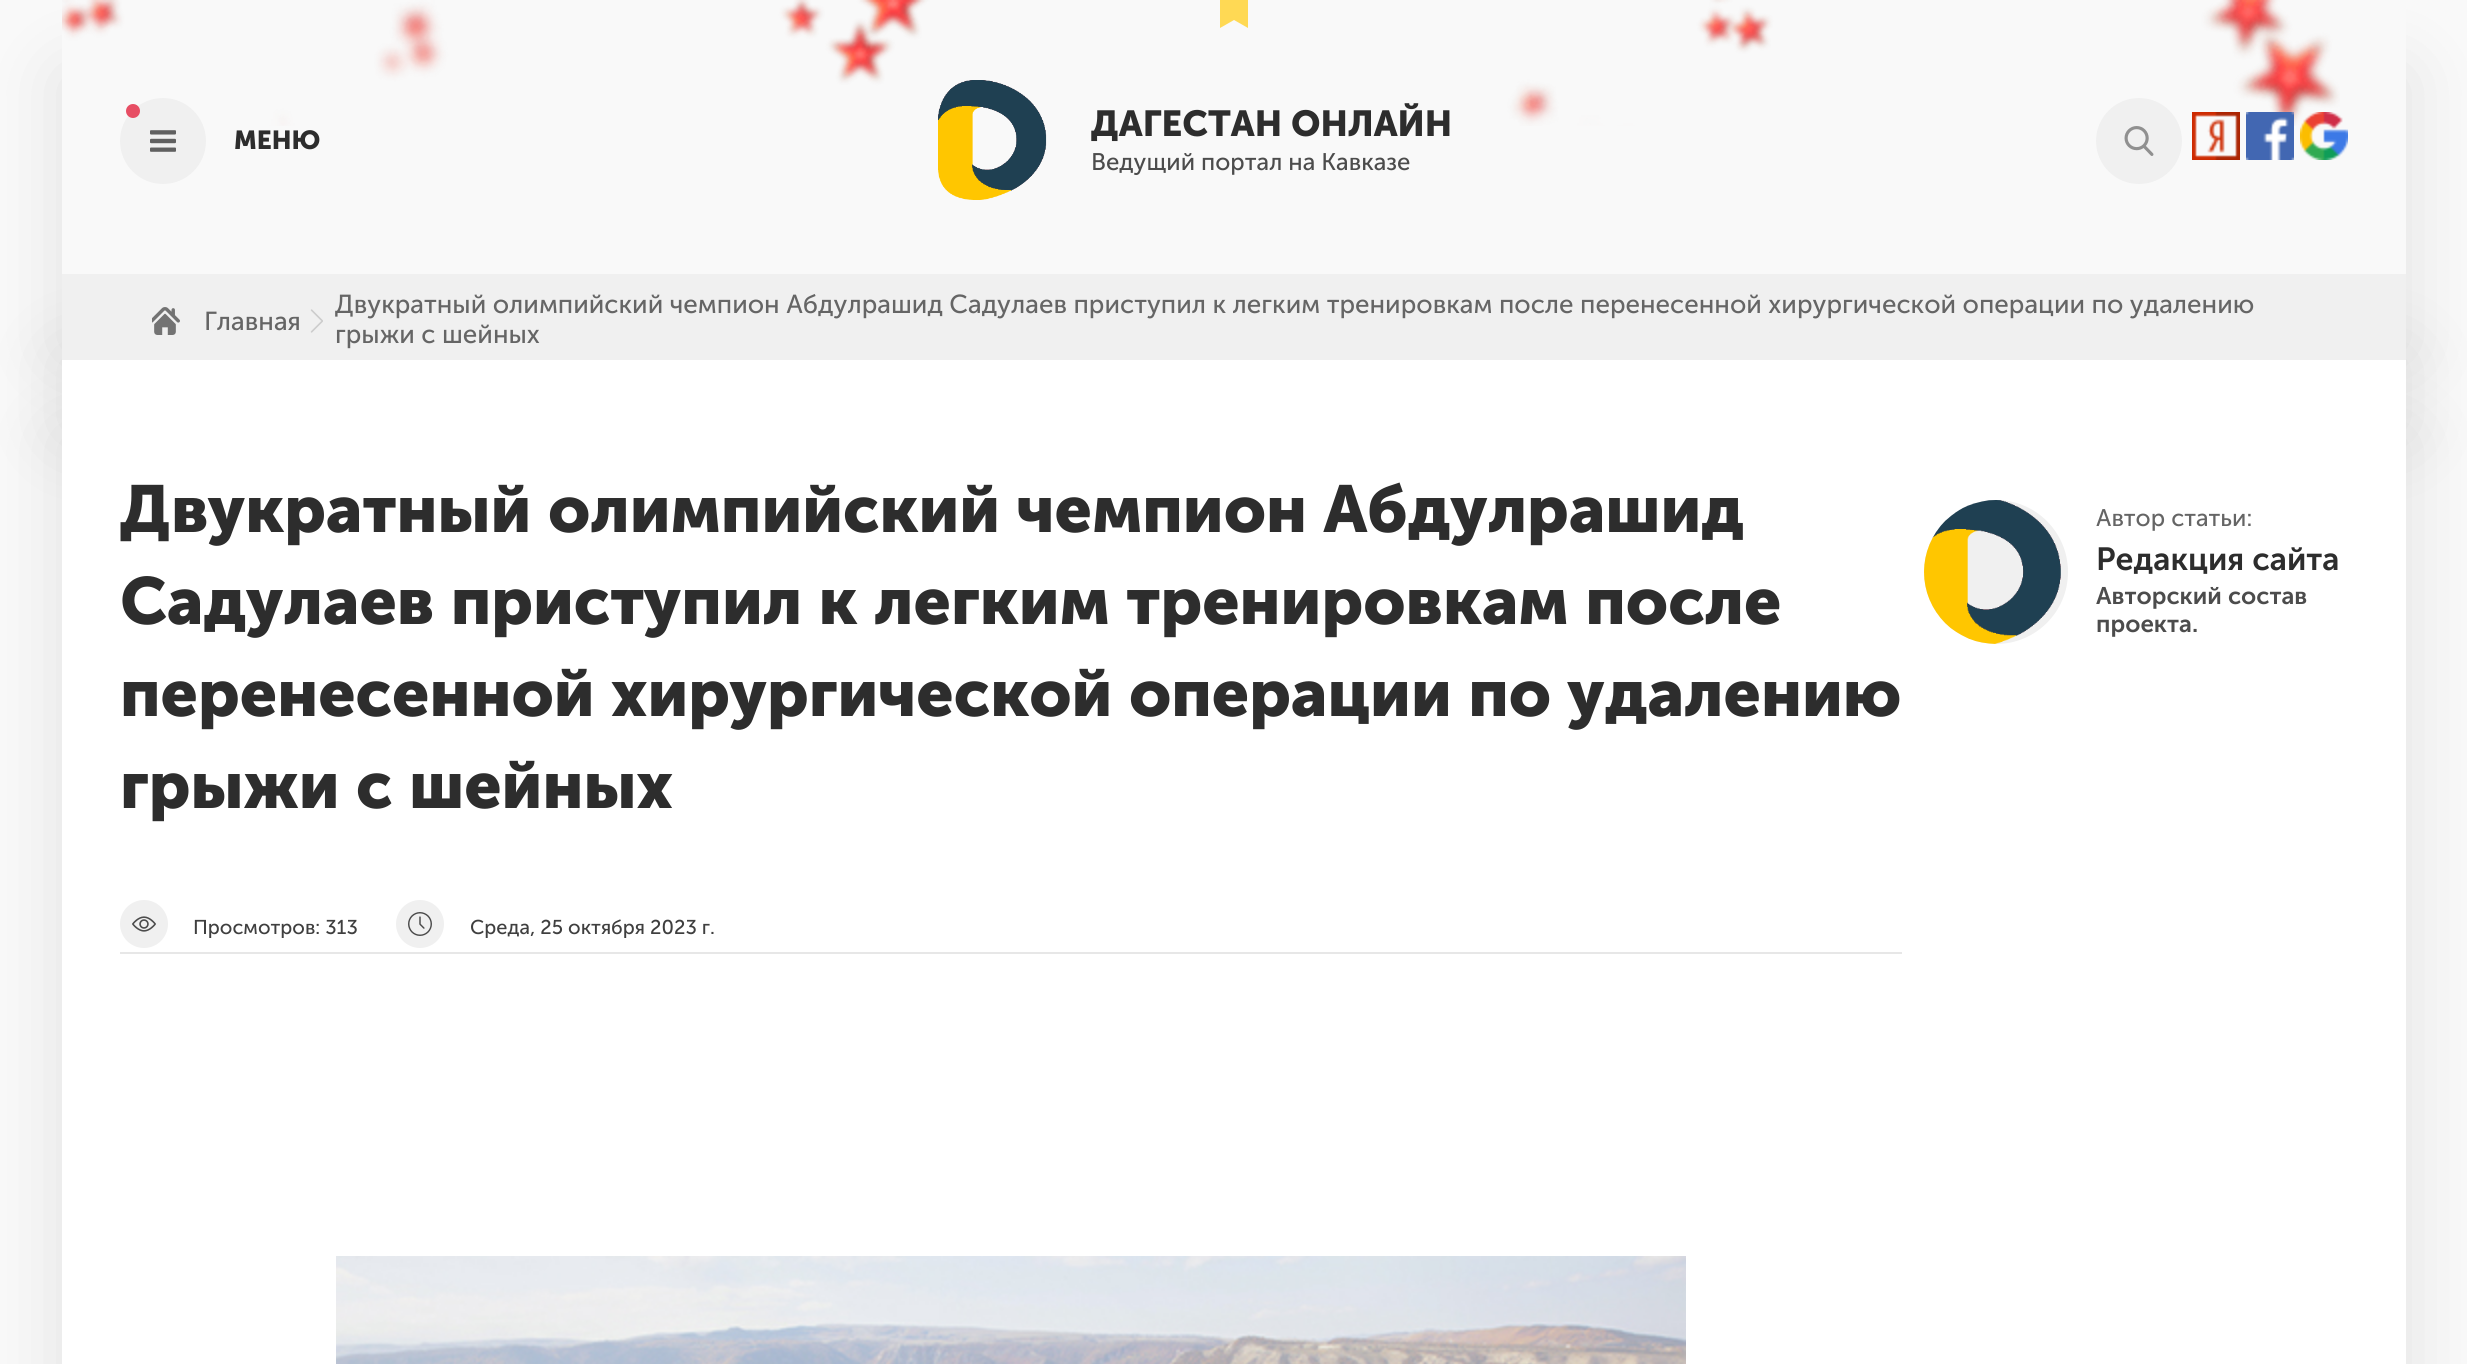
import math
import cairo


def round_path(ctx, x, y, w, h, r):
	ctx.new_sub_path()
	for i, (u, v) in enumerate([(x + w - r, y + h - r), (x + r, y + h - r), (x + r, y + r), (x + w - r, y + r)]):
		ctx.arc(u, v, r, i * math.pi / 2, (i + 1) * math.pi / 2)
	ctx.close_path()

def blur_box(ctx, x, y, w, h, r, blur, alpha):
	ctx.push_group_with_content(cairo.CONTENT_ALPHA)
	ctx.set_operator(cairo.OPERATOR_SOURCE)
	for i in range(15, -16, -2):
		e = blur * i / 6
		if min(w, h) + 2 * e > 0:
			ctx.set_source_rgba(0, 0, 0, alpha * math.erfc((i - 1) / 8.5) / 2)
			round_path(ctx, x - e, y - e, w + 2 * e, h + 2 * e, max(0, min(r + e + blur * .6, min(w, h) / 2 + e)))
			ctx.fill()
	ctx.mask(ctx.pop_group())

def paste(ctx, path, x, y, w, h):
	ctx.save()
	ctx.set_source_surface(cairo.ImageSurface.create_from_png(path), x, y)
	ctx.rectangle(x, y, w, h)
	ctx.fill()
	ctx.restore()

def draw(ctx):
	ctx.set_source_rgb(0.976, 0.976, 0.976)
	ctx.paint()
	ctx.save()
	ctx.set_fill_rule(cairo.FILL_RULE_EVEN_ODD)
	ctx.new_path()
	ctx.move_to(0, 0)
	ctx.line_to(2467, 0)
	ctx.line_to(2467, 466)
	ctx.line_to(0, 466)
	ctx.close_path()
	ctx.move_to(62, 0)
	ctx.line_to(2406, 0)
	ctx.line_to(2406, 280)
	ctx.line_to(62, 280)
	ctx.close_path()
	ctx.clip()
	ctx.set_source_rgb(0, 0, 0.004)
	blur_box(ctx, 62, 74, 2344, 280, 0, 37, 0.1)
	ctx.restore()
	paste(ctx, 'media/1.png', 62, 0, 2278, 126)
	ctx.set_source_rgb(0.941, 0.941, 0.941)
	ctx.rectangle(62, 274, 2344, 6)
	ctx.fill()
	ctx.arc(163, 141, 43, 0, 2 * math.pi)
	ctx.fill()
	ctx.set_source_rgb(0.906, 0.306, 0.392)
	ctx.arc(133, 111, 7, 0, 2 * math.pi)
	ctx.fill()
	paste(ctx, 'media/2.png', 150, 130, 26, 22)
	ctx.select_font_face('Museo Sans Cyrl', cairo.FONT_SLANT_NORMAL, cairo.FONT_WEIGHT_BOLD)
	ctx.set_font_size(26)
	ctx.set_source_rgb(0.176, 0.176, 0.176)
	ctx.move_to(234, 149)
	ctx.show_text('МЕНЮ')
	ctx.set_source_rgb(1, 0.851, 0.329)
	ctx.set_fill_rule(cairo.FILL_RULE_EVEN_ODD)
	ctx.new_path()
	ctx.move_to(1248, -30)
	ctx.line_to(1248, 28)
	ctx.line_to(1234, 20)
	ctx.line_to(1220, 28)
	ctx.line_to(1220, -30)
	ctx.close_path()
	ctx.fill()
	paste(ctx, 'media/3.png', 938, 80, 109, 120)
	ctx.set_font_size(36)
	ctx.set_source_rgb(0.176, 0.176, 0.176)
	ctx.move_to(1091, 136)
	ctx.show_text('ДАГЕСТАН ОНЛАЙН')
	ctx.select_font_face('Museo Sans Cyrl')
	ctx.set_font_size(24)
	ctx.set_source_rgb(0.298, 0.298, 0.298)
	ctx.move_to(1091, 170)
	ctx.show_text('Ведущий портал на Кавказе')
	ctx.set_source_rgb(0.941, 0.941, 0.941)
	ctx.new_path()
	ctx.arc(2139, 141, 43, 0, 2 * math.pi)
	ctx.fill()
	paste(ctx, 'media/4.png', 2124, 126, 30, 30)
	paste(ctx, 'media/5.png', 2192, 112, 48, 48)
	paste(ctx, 'media/6.png', 2246, 112, 48, 48)
	paste(ctx, 'media/7.png', 2300, 112, 48, 48)
	ctx.set_source_rgb(0, 0, 0.004)
	blur_box(ctx, 62, 354, 2344, 80, 0, 37, 0.1)
	ctx.set_source_rgb(0.941, 0.941, 0.941)
	ctx.rectangle(62, 280, 2344, 80)
	ctx.fill()
	paste(ctx, 'media/8.png', 152, 307, 28, 28)
	ctx.set_font_size(26)
	ctx.set_source_rgb(0.396, 0.396, 0.396)
	ctx.move_to(204, 330)
	ctx.show_text('Главная')
	paste(ctx, 'media/9.png', 310, 309, 13, 24)
	ctx.move_to(335, 313)
	ctx.show_text('Двукратный олимпийский чемпион Абдулрашид Садулаев приступил к легким тренировкам после перенесенной хирургической операции по удалению')
	ctx.move_to(335, 343)
	ctx.show_text('грыжи с шейных')
	ctx.set_source_rgb(0, 0, 0.004)
	blur_box(ctx, 62, 434, 2344, 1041, 0, 37, 0.1)
	ctx.set_source_rgb(1, 1, 1)
	ctx.rectangle(62, 360, 2344, 1004)
	ctx.fill()
	ctx.select_font_face('Museo Sans Cyrl', cairo.FONT_SLANT_NORMAL, cairo.FONT_WEIGHT_BOLD)
	ctx.set_font_size(66)
	ctx.set_source_rgb(0.176, 0.176, 0.176)
	for x, y, s in [
		(120, 532, 'Двукратный олимпийский чемпион Абдулрашид'),
		(120, 624, 'Садулаев приступил к легким тренировкам после'),
		(120, 716, 'перенесенной хирургической операции по удалению'),
		(120, 808, 'грыжи с шейных'),
	]:
		ctx.move_to(x, y)
		ctx.show_text(s)
	ctx.set_source_rgb(0.906, 0.906, 0.906)
	ctx.rectangle(120, 952, 1782, 2)
	ctx.fill()
	ctx.set_source_rgb(0.941, 0.941, 0.941)
	ctx.arc(144, 924, 24, 0, 2 * math.pi)
	ctx.fill()
	paste(ctx, 'media/10.png', 132, 916, 24, 16)
	ctx.select_font_face('Museo Sans Cyrl')
	ctx.set_font_size(20)
	ctx.set_source_rgb(0.247, 0.247, 0.247)
	ctx.move_to(193, 934)
	ctx.show_text('Просмотров: 313')
	ctx.set_source_rgb(0.941, 0.941, 0.941)
	ctx.new_path()
	ctx.arc(420, 924, 24, 0, 2 * math.pi)
	ctx.fill()
	paste(ctx, 'media/11.png', 408, 912, 24, 24)
	ctx.set_source_rgb(0.247, 0.247, 0.247)
	ctx.move_to(470, 934)
	ctx.show_text('Среда, 25 октября 2023 г.')
	paste(ctx, 'media/12.png', 336, 1256, 1350, 108)
	ctx.set_source_rgb(0.941, 0.941, 0.941)
	ctx.arc(1996, 572, 72, 0, 2 * math.pi)
	ctx.fill()
	paste(ctx, 'media/13.png', 1924, 500, 137, 144)
	ctx.set_font_size(24)
	ctx.set_source_rgb(0.396, 0.396, 0.396)
	ctx.move_to(2096, 526)
	ctx.show_text('Автор статьи:')
	ctx.select_font_face('Museo Sans Cyrl SemiBold')
	ctx.set_font_size(32)
	ctx.set_source_rgb(0.176, 0.176, 0.176)
	ctx.move_to(2096, 570)
	ctx.show_text('Редакция сайта')
	ctx.set_font_size(24)
	ctx.set_source_rgb(0.298, 0.298, 0.298)
	ctx.move_to(2096, 604)
	ctx.show_text('Авторский состав')
	ctx.move_to(2096, 632)
	ctx.show_text('проекта.')


surface = cairo.ImageSurface(cairo.FORMAT_RGB24, 2467, 1364)
ctx = cairo.Context(surface)
options = cairo.FontOptions()
options.set_hint_metrics(cairo.HINT_METRICS_OFF)
options.set_hint_style(cairo.HINT_STYLE_NONE)
ctx.set_font_options(options)
ctx.set_miter_limit(4)
draw(ctx)
surface.write_to_png('image.png')
